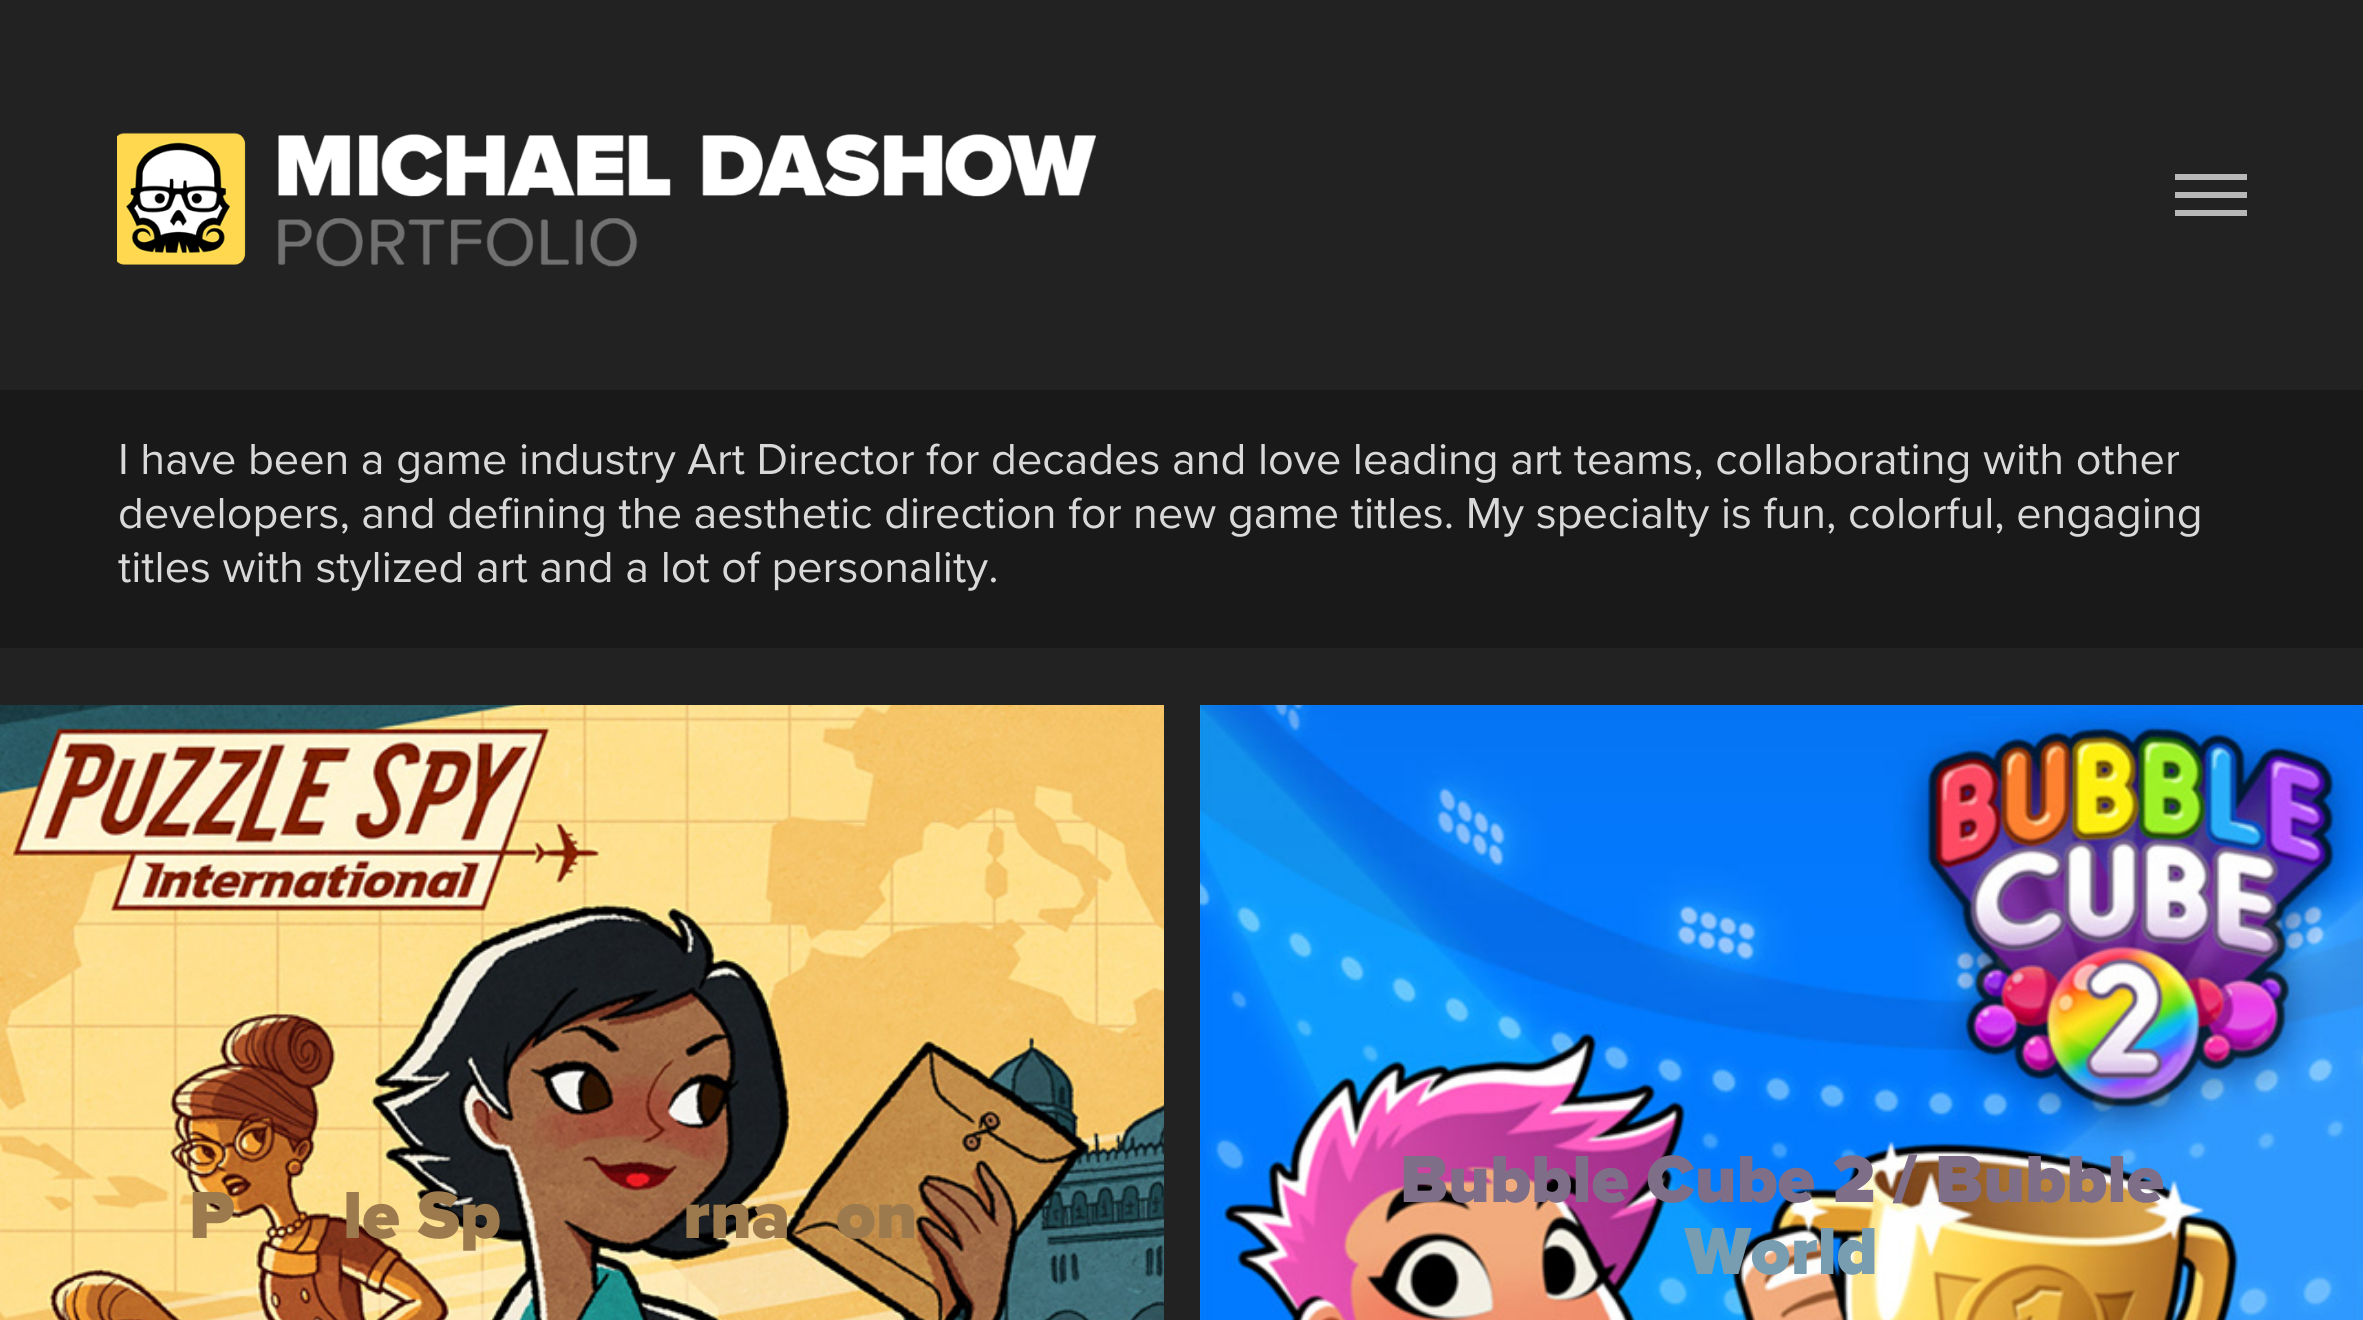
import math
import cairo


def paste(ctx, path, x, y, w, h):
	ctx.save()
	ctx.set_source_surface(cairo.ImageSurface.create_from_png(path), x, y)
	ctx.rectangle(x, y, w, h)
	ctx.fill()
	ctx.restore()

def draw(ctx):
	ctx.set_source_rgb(0.133, 0.133, 0.133)
	ctx.paint()
	paste(ctx, 'media/1.png', 117, 132, 980, 135)
	ctx.set_source_rgb(0.722, 0.722, 0.722)
	ctx.rectangle(2175, 174, 72, 6)
	ctx.rectangle(2175, 192, 72, 6)
	ctx.rectangle(2175, 210, 72, 6)
	ctx.fill()
	ctx.set_source_rgb(0.098, 0.098, 0.098)
	ctx.rectangle(0, 390, 2363, 258)
	ctx.fill()
	ctx.select_font_face('Proxima Nova')
	ctx.set_font_size(45)
	ctx.set_source_rgb(0.851, 0.851, 0.851)
	for x, y, s in [
		(118, 474, 'I have been a game industry Art Director for decades and love leading art teams, collaborating with other'),
		(118, 528, 'developers, and defining the aesthetic direction for new game titles. My specialty is fun, colorful, engaging'),
		(118, 582, 'titles with stylized art and a lot of personality.'),
	]:
		ctx.move_to(x, y)
		ctx.show_text(s)
	paste(ctx, 'media/2.png', 0, 705, 1164, 615)
	ctx.select_font_face('Proxima Nova Black')
	ctx.set_font_size(69)
	ctx.set_source_rgb(0.612, 0.478, 0.302)
	for x, y, s in [
		(189, 1238, 'P'),
		(343, 1238, 'le Sp'),
		(683, 1238, 'rna'),
		(836, 1238, 'on'),
	]:
		ctx.move_to(x, y)
		ctx.show_text(s)
	paste(ctx, 'media/3.png', 1200, 705, 1163, 615)
	ctx.set_source_rgb(0.494, 0.431, 0.529)
	ctx.move_to(1400, 1202)
	ctx.show_text('Bubble Cube 2 / Bubble')
	ctx.set_source_rgb(0.471, 0.616, 0.69)
	ctx.move_to(1685, 1274)
	ctx.show_text('World')


surface = cairo.ImageSurface(cairo.FORMAT_RGB24, 2363, 1320)
ctx = cairo.Context(surface)
options = cairo.FontOptions()
options.set_hint_metrics(cairo.HINT_METRICS_OFF)
options.set_hint_style(cairo.HINT_STYLE_NONE)
ctx.set_font_options(options)
ctx.set_miter_limit(4)
draw(ctx)
surface.write_to_png('image.png')
